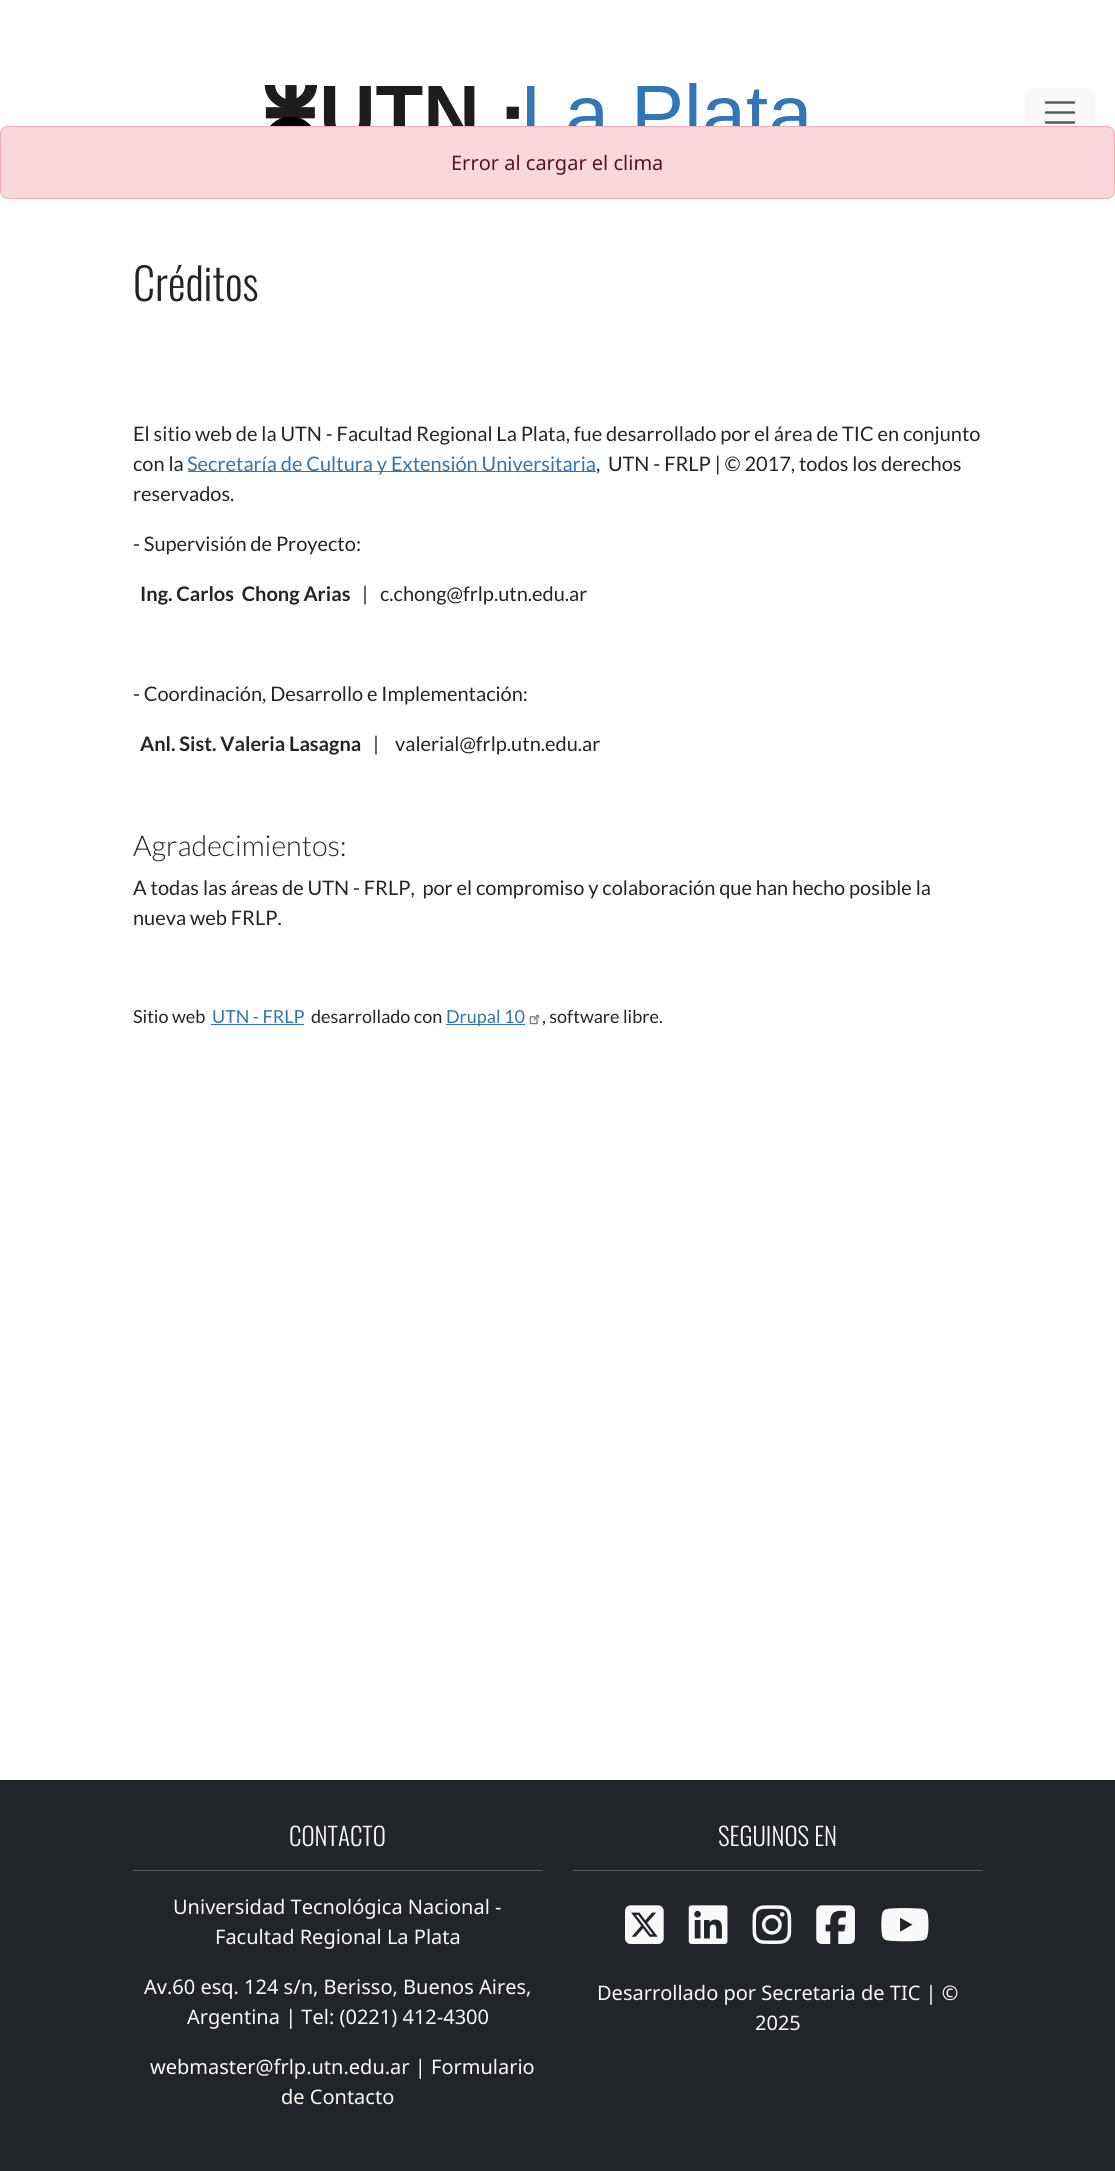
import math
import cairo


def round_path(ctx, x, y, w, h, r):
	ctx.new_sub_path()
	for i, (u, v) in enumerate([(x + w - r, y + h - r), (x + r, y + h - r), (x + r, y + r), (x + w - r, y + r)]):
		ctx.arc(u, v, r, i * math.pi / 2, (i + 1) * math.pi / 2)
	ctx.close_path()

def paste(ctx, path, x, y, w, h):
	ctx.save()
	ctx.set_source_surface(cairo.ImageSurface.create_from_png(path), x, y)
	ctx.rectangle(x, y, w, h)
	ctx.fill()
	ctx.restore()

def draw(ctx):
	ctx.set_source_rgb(1, 1, 1)
	ctx.paint()
	paste(ctx, 'media/1.png', 264, 83, 543, 43)
	ctx.set_source_rgb(0.973, 0.976, 0.98)
	round_path(ctx, 1025, 88, 70, 50, 8)
	ctx.fill()
	ctx.new_path()
	ctx.move_to(1046, 102.5)
	ctx.line_to(1074, 102.5)
	ctx.move_to(1046, 112.5)
	ctx.line_to(1074, 112.5)
	ctx.move_to(1046, 122.5)
	ctx.line_to(1074, 122.5)
	ctx.set_source_rgb(0.341, 0.353, 0.365)
	ctx.set_line_width(2.5)
	ctx.set_line_cap(cairo.LINE_CAP_ROUND)
	ctx.stroke()
	ctx.set_source_rgb(0.973, 0.843, 0.855)
	round_path(ctx, 0.5, 126.5, 1114, 72, 7.5)
	ctx.fill_preserve()
	ctx.set_source_rgb(0.945, 0.682, 0.71)
	ctx.set_line_width(1)
	ctx.set_line_cap(cairo.LINE_CAP_BUTT)
	ctx.stroke()
	ctx.select_font_face('Noto Sans')
	ctx.set_font_size(20)
	ctx.set_source_rgb(0.345, 0.082, 0.11)
	ctx.move_to(451, 170)
	ctx.show_text('Error al cargar el clima')
	ctx.select_font_face('Oswald Light')
	ctx.set_font_size(44)
	ctx.set_source_rgb(0.129, 0.145, 0.161)
	ctx.move_to(133, 301)
	ctx.show_text('Créditos')
	ctx.select_font_face('Lato')
	ctx.set_font_size(20)
	ctx.move_to(133, 441)
	ctx.show_text('El sitio web de la UTN - Facultad Regional La Plata, fue desarrollado por el área de TIC en conjunto')
	ctx.move_to(133, 471)
	ctx.show_text('con la')
	ctx.set_source_rgb(0.192, 0.463, 0.686)
	ctx.rectangle(188, 471, 408, 1)
	ctx.fill()
	ctx.move_to(187, 471)
	ctx.show_text('Secretaría de Cultura y Extensión Universitaria')
	ctx.set_source_rgb(0.129, 0.145, 0.161)
	for x, y, s in [
		(596, 471, ',  UTN - FRLP | © 2017, todos los derechos'),
		(133, 501, 'reservados.'),
		(133, 551, '- Supervisión de Proyecto:'),
	]:
		ctx.move_to(x, y)
		ctx.show_text(s)
	ctx.select_font_face('Lato', cairo.FONT_SLANT_NORMAL, cairo.FONT_WEIGHT_BOLD)
	ctx.move_to(140, 601)
	ctx.show_text('Ing. Carlos  Chong Arias')
	ctx.select_font_face('Lato')
	for x, y, s in [
		(362, 601, '|'),
		(380, 601, 'c.chong@frlp.utn.edu.ar'),
		(133, 701, '- Coordinación, Desarrollo e Implementación:'),
	]:
		ctx.move_to(x, y)
		ctx.show_text(s)
	ctx.select_font_face('Lato', cairo.FONT_SLANT_NORMAL, cairo.FONT_WEIGHT_BOLD)
	ctx.move_to(140, 751)
	ctx.show_text('Anl. Sist. Valeria Lasagna')
	ctx.select_font_face('Lato')
	ctx.move_to(373, 751)
	ctx.show_text('|')
	ctx.move_to(395, 751)
	ctx.show_text('valerial@frlp.utn.edu.ar')
	ctx.select_font_face('Lato Light')
	ctx.set_font_size(28.75)
	ctx.move_to(133, 856)
	ctx.show_text('Agradecimientos:')
	ctx.select_font_face('Lato')
	ctx.set_font_size(20)
	ctx.move_to(133, 895)
	ctx.show_text('A todas las áreas de UTN - FRLP,  por el compromiso y colaboración que han hecho posible la')
	ctx.move_to(133, 925)
	ctx.show_text('nueva web FRLP.')
	ctx.set_font_size(18)
	ctx.move_to(133, 1023)
	ctx.show_text('Sitio web')
	ctx.set_source_rgb(0.192, 0.463, 0.686)
	ctx.move_to(212, 1023)
	ctx.show_text('UTN - FRLP')
	ctx.rectangle(211, 1024, 93, 1)
	ctx.fill()
	ctx.set_source_rgb(0.129, 0.145, 0.161)
	ctx.move_to(311, 1023)
	ctx.show_text('desarrollado con')
	ctx.set_source_rgb(0.192, 0.463, 0.686)
	ctx.rectangle(446, 1024, 79, 1)
	ctx.fill()
	ctx.move_to(446, 1023)
	ctx.show_text('Drupal 10')
	paste(ctx, 'media/2.png', 529, 1014, 11, 11)
	ctx.set_source_rgb(0.129, 0.145, 0.161)
	ctx.move_to(542, 1023)
	ctx.show_text(', software libre.')
	ctx.rectangle(0, 1780, 1115, 391)
	ctx.fill()
	ctx.select_font_face('Oswald Light')
	ctx.set_font_size(25)
	ctx.set_source_rgb(0.973, 0.976, 0.98)
	ctx.move_to(289, 1846)
	ctx.show_text('CONTACTO')
	ctx.set_source_rgb(0.341, 0.353, 0.365)
	ctx.rectangle(133, 1870, 410, 1)
	ctx.fill()
	ctx.select_font_face('Noto Sans')
	ctx.set_font_size(20)
	ctx.set_source_rgb(0.973, 0.976, 0.98)
	for x, y, s in [
		(173, 1914, 'Universidad Tecnológica Nacional -'),
		(215, 1944, 'Facultad Regional La Plata'),
		(144, 1994, 'Av.60 esq. 124 s/n, Berisso, Buenos Aires,'),
		(187, 2024, 'Argentina | Tel: (0221) 412-4300'),
		(150, 2074, 'webmaster@frlp.utn.edu.ar | Formulario'),
		(281, 2104, 'de Contacto'),
	]:
		ctx.move_to(x, y)
		ctx.show_text(s)
	ctx.select_font_face('Oswald Light')
	ctx.set_font_size(25)
	ctx.move_to(718, 1846)
	ctx.show_text('SEGUINOS EN')
	ctx.set_source_rgb(0.341, 0.353, 0.365)
	ctx.rectangle(573, 1870, 410, 1)
	ctx.fill()
	paste(ctx, 'media/3.png', 625, 1905, 39, 39)
	paste(ctx, 'media/4.png', 688, 1905, 40, 39)
	paste(ctx, 'media/5.png', 752, 1905, 40, 39)
	paste(ctx, 'media/6.png', 816, 1905, 39, 39)
	paste(ctx, 'media/7.png', 881, 1908, 48, 34)
	ctx.select_font_face('Noto Sans')
	ctx.set_font_size(20)
	ctx.set_source_rgb(0.973, 0.976, 0.98)
	ctx.move_to(597, 2000)
	ctx.show_text('Desarrollado por Secretaria de TIC | ©')
	ctx.move_to(755, 2030)
	ctx.show_text('2025')


surface = cairo.ImageSurface(cairo.FORMAT_RGB24, 1115, 2171)
ctx = cairo.Context(surface)
options = cairo.FontOptions()
options.set_hint_metrics(cairo.HINT_METRICS_OFF)
options.set_hint_style(cairo.HINT_STYLE_NONE)
ctx.set_font_options(options)
ctx.set_miter_limit(4)
draw(ctx)
surface.write_to_png('image.png')
